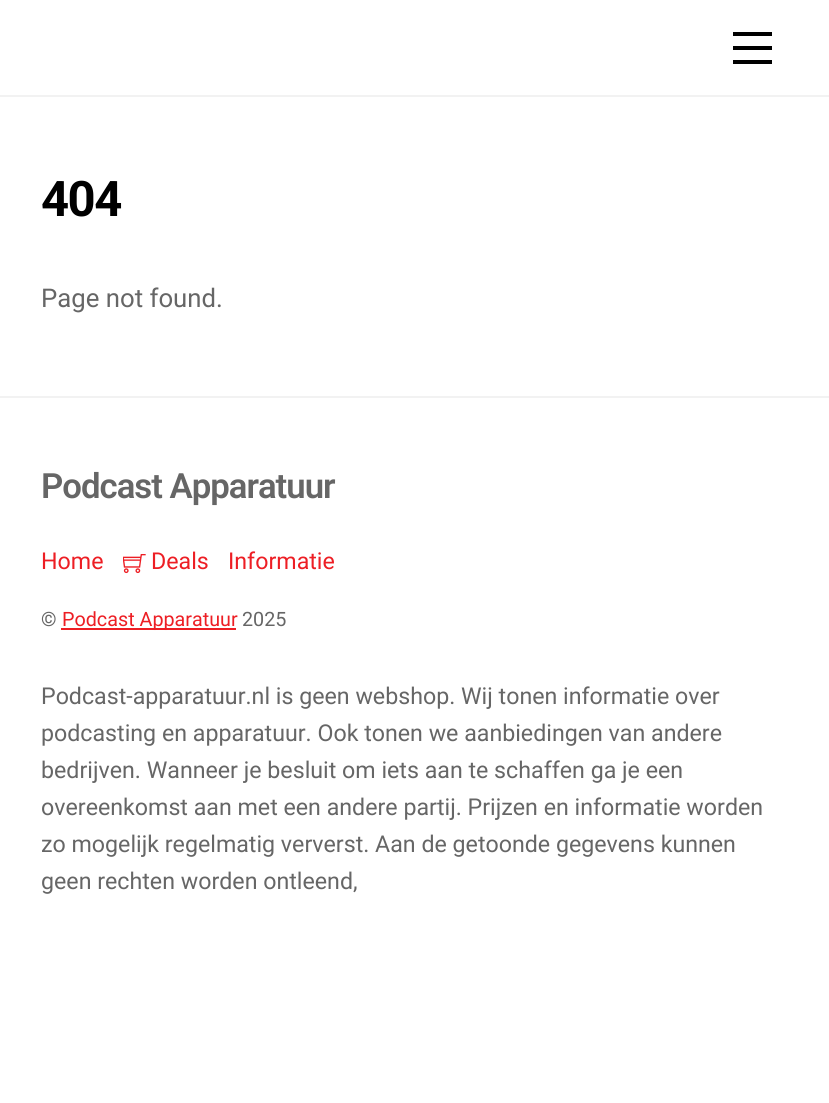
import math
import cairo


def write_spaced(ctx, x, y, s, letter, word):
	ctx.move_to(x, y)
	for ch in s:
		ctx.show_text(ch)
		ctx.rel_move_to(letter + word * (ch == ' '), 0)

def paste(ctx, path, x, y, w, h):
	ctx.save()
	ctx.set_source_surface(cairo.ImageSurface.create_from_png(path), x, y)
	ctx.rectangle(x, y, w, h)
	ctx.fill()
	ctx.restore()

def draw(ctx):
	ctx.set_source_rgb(1, 1, 1)
	ctx.paint()
	ctx.set_source_rgb(0.949, 0.949, 0.949)
	ctx.rectangle(0, 95, 829, 2)
	ctx.fill()
	ctx.set_source_rgb(0, 0, 0)
	ctx.rectangle(733, 60, 39, 4)
	ctx.rectangle(733, 32, 39, 4)
	ctx.rectangle(733, 46, 39, 4)
	ctx.fill()
	ctx.select_font_face('Roboto', cairo.FONT_SLANT_NORMAL, cairo.FONT_WEIGHT_BOLD)
	ctx.set_font_size(49)
	write_spaced(ctx, 41, 216, '404', -1.5, 0)
	ctx.select_font_face('Roboto')
	ctx.set_font_size(25.75)
	ctx.set_source_rgb(0.4, 0.4, 0.4)
	ctx.move_to(41, 307)
	ctx.show_text('Page not found.')
	ctx.set_source_rgb(0.949, 0.949, 0.949)
	ctx.rectangle(0, 396, 829, 2)
	ctx.fill()
	ctx.select_font_face('Roboto SemiBold')
	ctx.set_font_size(34.75)
	ctx.set_source_rgb(0.4, 0.4, 0.4)
	write_spaced(ctx, 41, 498, 'Podcast Apparatuur', -1, 0)
	ctx.select_font_face('Roboto')
	ctx.set_font_size(23.2)
	ctx.set_source_rgb(0.929, 0.118, 0.141)
	ctx.move_to(41, 569)
	ctx.show_text('Home')
	paste(ctx, 'media/1.png', 123, 554, 23, 20)
	ctx.move_to(151, 569)
	ctx.show_text('Deals')
	ctx.move_to(228, 569)
	ctx.show_text('Informatie')
	ctx.set_font_size(19.75)
	ctx.set_source_rgb(0.4, 0.4, 0.4)
	ctx.move_to(41, 626)
	ctx.show_text('©')
	ctx.set_source_rgb(0.929, 0.118, 0.141)
	ctx.rectangle(61, 628, 175, 2)
	ctx.fill()
	ctx.move_to(62, 626)
	ctx.show_text('Podcast Apparatuur')
	ctx.set_source_rgb(0.4, 0.4, 0.4)
	ctx.move_to(242, 626)
	ctx.show_text('2025')
	ctx.set_font_size(23.2)
	for x, y, s in [
		(41, 704, 'Podcast-apparatuur.nl is geen webshop. Wij tonen informatie over'),
		(41, 741, 'podcasting en apparatuur. Ook tonen we aanbiedingen van andere'),
		(41, 778, 'bedrijven. Wanneer je besluit om iets aan te schaffen ga je een'),
		(41, 815, 'overeenkomst aan met een andere partij. Prijzen en informatie worden'),
		(41, 852, 'zo mogelijk regelmatig ververst. Aan de getoonde gegevens kunnen'),
		(41, 889, 'geen rechten worden ontleend,'),
	]:
		ctx.move_to(x, y)
		ctx.show_text(s)


surface = cairo.ImageSurface(cairo.FORMAT_RGB24, 829, 1103)
ctx = cairo.Context(surface)
options = cairo.FontOptions()
options.set_hint_metrics(cairo.HINT_METRICS_OFF)
options.set_hint_style(cairo.HINT_STYLE_NONE)
ctx.set_font_options(options)
ctx.set_miter_limit(4)
draw(ctx)
surface.write_to_png('image.png')
